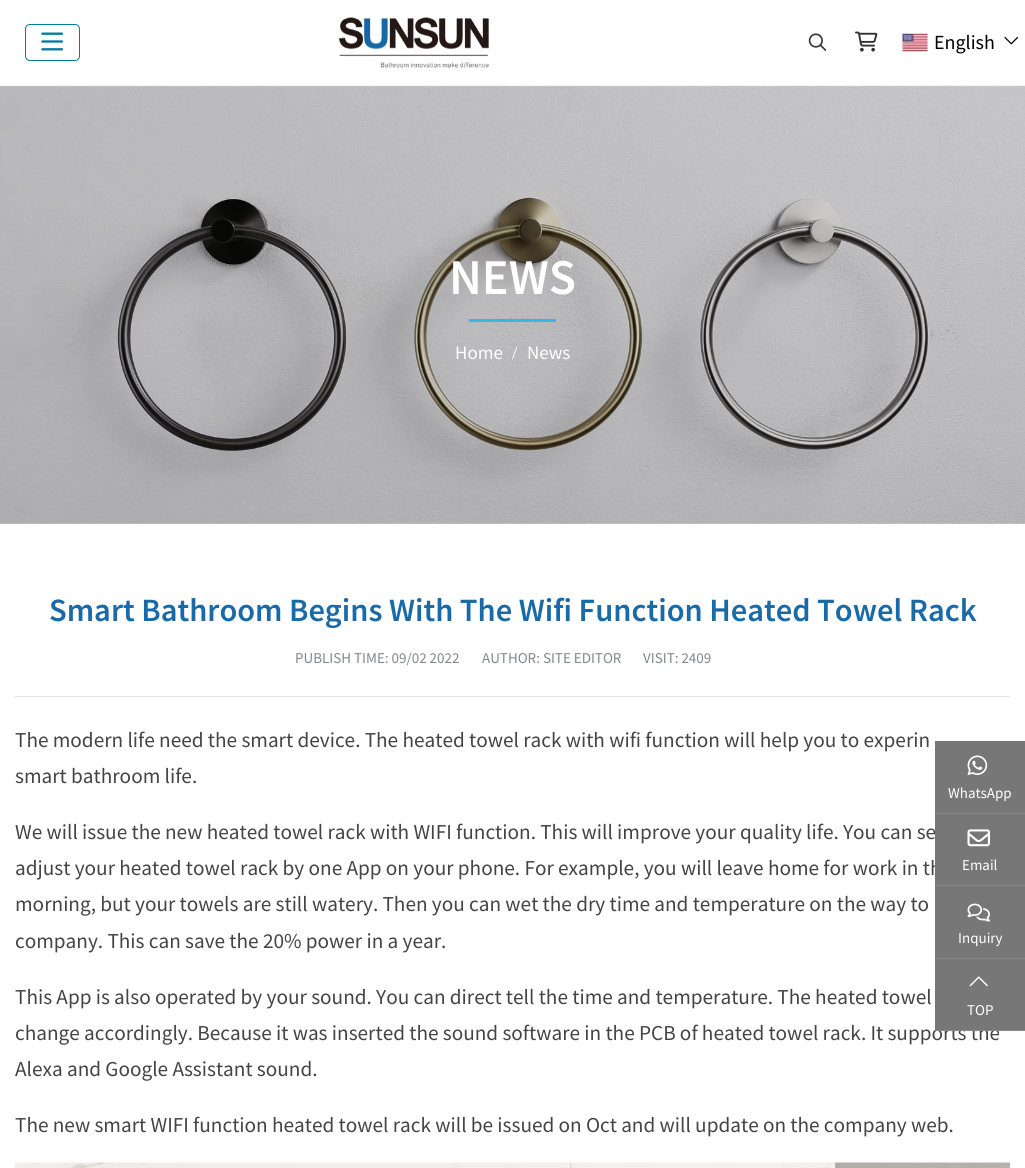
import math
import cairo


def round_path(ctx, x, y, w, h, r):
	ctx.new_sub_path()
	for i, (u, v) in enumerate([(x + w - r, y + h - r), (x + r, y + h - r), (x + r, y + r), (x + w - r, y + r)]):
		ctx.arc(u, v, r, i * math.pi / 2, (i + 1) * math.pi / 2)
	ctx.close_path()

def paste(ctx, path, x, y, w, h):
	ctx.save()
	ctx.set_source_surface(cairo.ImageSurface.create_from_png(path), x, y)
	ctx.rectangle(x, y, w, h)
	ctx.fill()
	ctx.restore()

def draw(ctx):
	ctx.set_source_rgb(1, 1, 1)
	ctx.paint()
	ctx.set_source_rgb(0.8, 0.8, 0.8)
	ctx.rectangle(0, 86, 1025, 438)
	ctx.fill()
	ctx.set_source_rgb(0.949, 0.949, 0.949)
	ctx.rectangle(0, 85, 1025, 1)
	ctx.fill()
	round_path(ctx, 25.5, 24.5, 54, 36, 4.5)
	ctx.set_source_rgb(0, 0.49, 0.639)
	ctx.set_line_width(1)
	ctx.stroke()
	paste(ctx, 'media/1.png', 41, 32, 23, 19)
	paste(ctx, 'media/2.png', 338, 17, 151, 51)
	paste(ctx, 'media/3.png', 808, 33, 19, 18)
	paste(ctx, 'media/4.png', 855, 31, 23, 21)
	paste(ctx, 'media/5.png', 902, 33, 26, 19)
	ctx.select_font_face('Source Sans Pro')
	ctx.set_font_size(20)
	ctx.set_source_rgb(0, 0, 0)
	ctx.move_to(934, 49)
	ctx.show_text('English')
	paste(ctx, 'media/6.png', 1004, 36, 15, 9)
	paste(ctx, 'media/7.png', 0, 86, 1025, 438)
	ctx.select_font_face('Source Sans Pro SemiBold')
	ctx.set_font_size(50)
	ctx.set_source_rgb(1, 1, 1)
	ctx.move_to(449, 294)
	ctx.show_text('NEWS')
	ctx.set_source_rgb(0.196, 0.729, 0.898)
	ctx.rectangle(469, 319, 87, 3)
	ctx.fill()
	ctx.select_font_face('Source Sans Pro')
	ctx.set_font_size(19)
	ctx.set_source_rgb(1, 1, 1)
	ctx.move_to(455, 359)
	ctx.show_text('Home')
	ctx.select_font_face('Liberation Serif')
	ctx.move_to(512, 359)
	ctx.show_text('/')
	ctx.select_font_face('Source Sans Pro')
	ctx.move_to(527, 359)
	ctx.show_text('News')
	ctx.set_source_rgb(0.878, 0.894, 0.902)
	ctx.rectangle(15, 696, 995, 1)
	ctx.fill()
	ctx.select_font_face('Source Sans Pro SemiBold')
	ctx.set_font_size(32.5)
	ctx.set_source_rgb(0.098, 0.416, 0.655)
	ctx.move_to(49, 621)
	ctx.show_text('Smart Bathroom Begins With The Wifi Function Heated Towel Rack')
	ctx.select_font_face('Source Sans Pro')
	ctx.set_font_size(15)
	ctx.set_source_rgb(0.514, 0.525, 0.549)
	for x, y, s in [
		(295, 663, 'PUBLISH TIME: 09/02 2022'),
		(482, 663, 'AUTHOR: SITE EDITOR'),
		(643, 663, 'VISIT: 2409'),
	]:
		ctx.move_to(x, y)
		ctx.show_text(s)
	ctx.set_font_size(21.25)
	ctx.set_source_rgb(0.267, 0.267, 0.267)
	for x, y, s in [
		(15, 747, 'The modern life need the smart device. The heated towel rack with wifi function will help you to experin'),
		(15, 783, 'smart bathroom life.'),
		(15, 839, 'We will issue the new heated towel rack with WIFI function. This will improve your quality life. You can se'),
		(15, 875, 'adjust your heated towel rack by one App on your phone. For example, you will leave home for work in th'),
		(15, 911, 'morning, but your towels are still watery. Then you can wet the dry time and temperature on the way to'),
		(15, 948, 'company. This can save the 20% power in a year.'),
		(15, 1004, 'This App is also operated by your sound. You can direct tell the time and temperature. The heated towel'),
		(15, 1040, 'change accordingly. Because it was inserted the sound software in the PCB of heated towel rack. It supports the'),
		(15, 1076, 'Alexa and Google Assistant sound.'),
		(15, 1132, 'The new smart WIFI function heated towel rack will be issued on Oct and will update on the company web.'),
	]:
		ctx.move_to(x, y)
		ctx.show_text(s)
	paste(ctx, 'media/8.png', 15, 1162, 995, 6)
	ctx.set_source_rgb(0.467, 0.467, 0.467)
	ctx.rectangle(935, 741, 90, 72)
	ctx.fill()
	ctx.set_source_rgb(0.533, 0.533, 0.533)
	ctx.rectangle(935, 813, 90, 1)
	ctx.fill()
	paste(ctx, 'media/9.png', 967, 755, 21, 21)
	ctx.set_font_size(15)
	ctx.set_source_rgb(1, 1, 1)
	ctx.move_to(948, 798)
	ctx.show_text('WhatsApp')
	ctx.set_source_rgb(0.467, 0.467, 0.467)
	ctx.rectangle(935, 814, 90, 71)
	ctx.fill()
	ctx.set_source_rgb(0.533, 0.533, 0.533)
	ctx.rectangle(935, 885, 90, 1)
	ctx.fill()
	paste(ctx, 'media/10.png', 967, 829, 23, 18)
	ctx.set_source_rgb(1, 1, 1)
	ctx.move_to(962, 870)
	ctx.show_text('Email')
	ctx.set_source_rgb(0.467, 0.467, 0.467)
	ctx.rectangle(935, 886, 90, 72)
	ctx.fill()
	ctx.set_source_rgb(0.533, 0.533, 0.533)
	ctx.rectangle(935, 958, 90, 1)
	ctx.fill()
	paste(ctx, 'media/11.png', 967, 903, 23, 19)
	ctx.set_source_rgb(1, 1, 1)
	ctx.move_to(958, 943)
	ctx.show_text('Inquiry')
	ctx.set_source_rgb(0.467, 0.467, 0.467)
	ctx.rectangle(935, 959, 90, 71)
	ctx.fill()
	ctx.set_source_rgb(0.533, 0.533, 0.533)
	ctx.rectangle(935, 1030, 90, 1)
	ctx.fill()
	paste(ctx, 'media/12.png', 969, 976, 19, 11)
	ctx.set_source_rgb(1, 1, 1)
	ctx.move_to(967, 1015)
	ctx.show_text('TOP')


surface = cairo.ImageSurface(cairo.FORMAT_RGB24, 1025, 1168)
ctx = cairo.Context(surface)
options = cairo.FontOptions()
options.set_hint_metrics(cairo.HINT_METRICS_OFF)
options.set_hint_style(cairo.HINT_STYLE_NONE)
ctx.set_font_options(options)
ctx.set_miter_limit(4)
draw(ctx)
surface.write_to_png('image.png')
